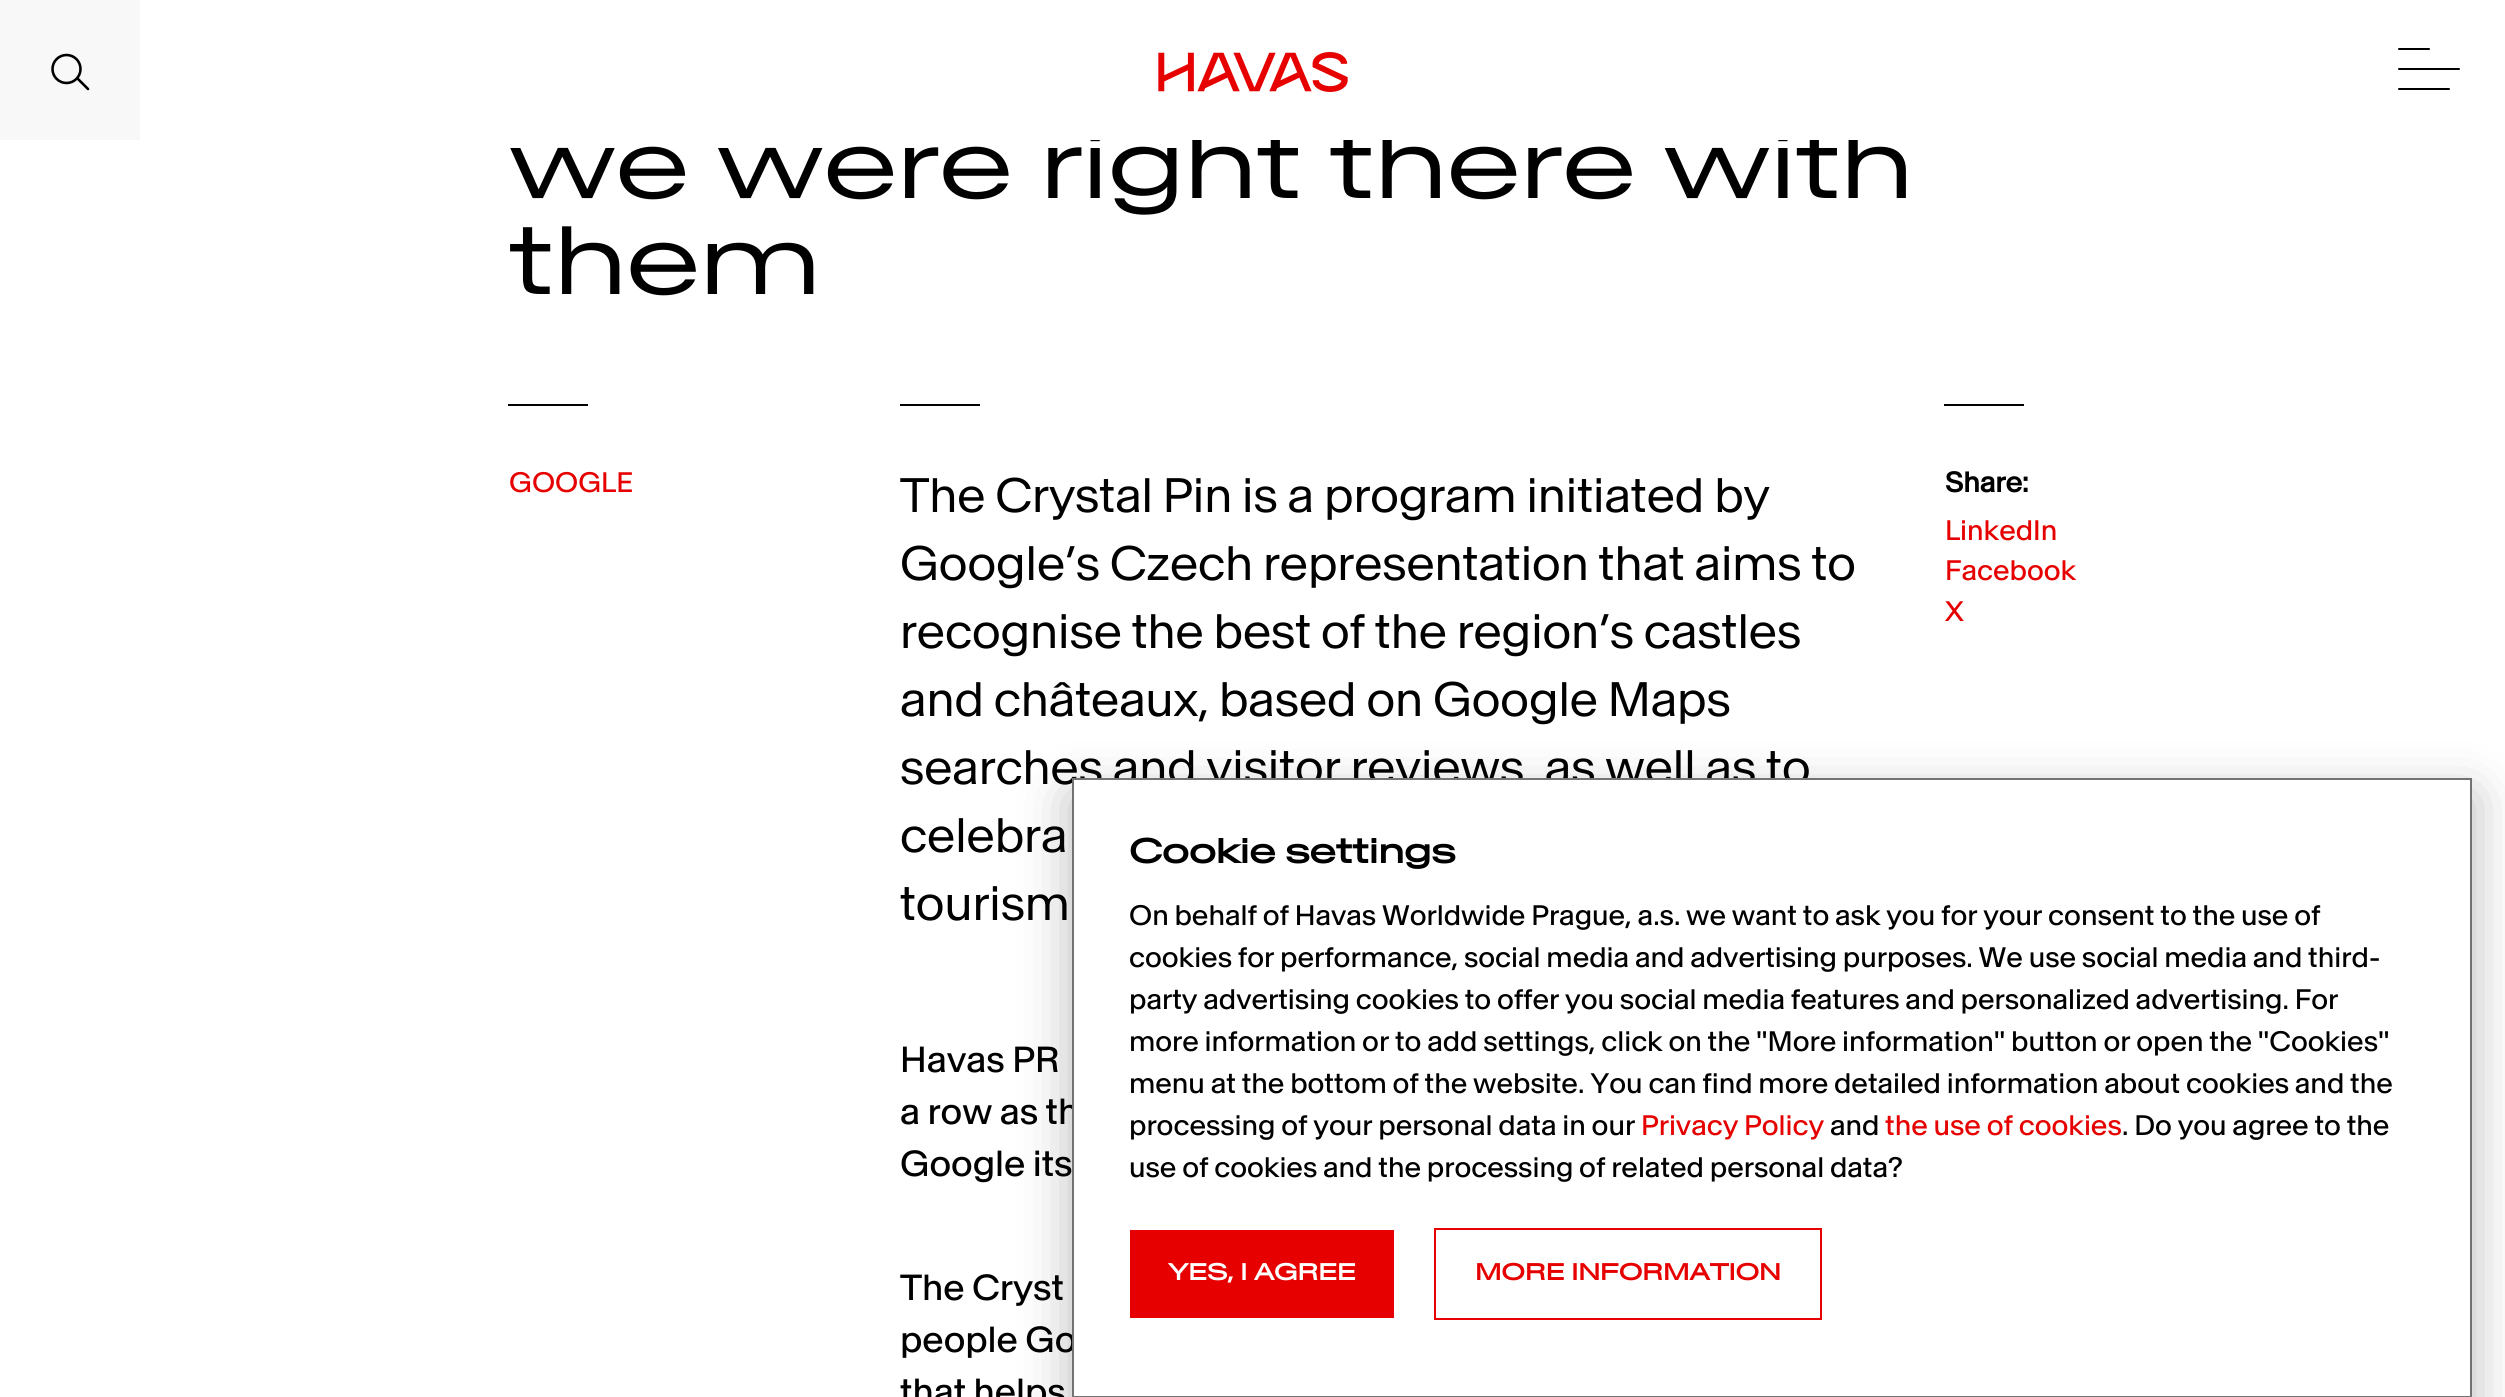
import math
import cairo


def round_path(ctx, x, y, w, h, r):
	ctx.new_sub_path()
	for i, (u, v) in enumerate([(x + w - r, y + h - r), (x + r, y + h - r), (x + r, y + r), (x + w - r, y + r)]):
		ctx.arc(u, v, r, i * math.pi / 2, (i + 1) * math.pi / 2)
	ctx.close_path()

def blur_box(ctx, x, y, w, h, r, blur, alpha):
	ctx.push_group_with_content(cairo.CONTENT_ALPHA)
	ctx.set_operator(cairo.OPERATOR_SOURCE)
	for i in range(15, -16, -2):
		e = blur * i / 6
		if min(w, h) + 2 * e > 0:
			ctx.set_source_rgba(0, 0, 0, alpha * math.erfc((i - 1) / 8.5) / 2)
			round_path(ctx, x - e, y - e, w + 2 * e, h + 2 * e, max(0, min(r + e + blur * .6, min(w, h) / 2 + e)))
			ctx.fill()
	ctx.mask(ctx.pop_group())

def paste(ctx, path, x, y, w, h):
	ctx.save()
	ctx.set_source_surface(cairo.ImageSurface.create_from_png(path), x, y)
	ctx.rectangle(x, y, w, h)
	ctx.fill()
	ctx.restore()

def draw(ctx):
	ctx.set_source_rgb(1, 1, 1)
	ctx.paint()
	ctx.select_font_face('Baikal')
	ctx.set_font_size(96)
	ctx.set_source_rgb(0, 0, 0)
	ctx.move_to(509, 198)
	ctx.show_text('we were right there with')
	ctx.set_source_rgb(1, 1, 1)
	ctx.rectangle(1090, 130, 768, 10)
	ctx.fill()
	ctx.set_source_rgb(0.969, 0.969, 0.969)
	ctx.rectangle(0, 0, 140, 140)
	ctx.fill()
	ctx.arc(66.5, 69, 14, 0, 2 * math.pi)
	ctx.set_source_rgb(0, 0, 0)
	ctx.set_line_width(2.6)
	ctx.stroke()
	ctx.new_path()
	ctx.move_to(78, 79)
	ctx.line_to(88, 89)
	ctx.set_line_cap(cairo.LINE_CAP_ROUND)
	ctx.set_line_join(cairo.LINE_JOIN_ROUND)
	ctx.stroke()
	paste(ctx, 'media/1.png', 1158, 52, 190, 40)
	ctx.new_path()
	ctx.move_to(2399, 49)
	ctx.line_to(2429, 49)
	ctx.move_to(2399, 89)
	ctx.line_to(2449, 89)
	ctx.move_to(2399, 69)
	ctx.line_to(2459, 69)
	ctx.set_line_width(2)
	ctx.stroke()
	ctx.move_to(509, 294)
	ctx.show_text('them')
	ctx.rectangle(508, 404, 80, 2)
	ctx.fill()
	ctx.select_font_face('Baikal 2')
	ctx.set_font_size(28)
	ctx.set_source_rgb(0.902, 0, 0)
	ctx.move_to(509, 492)
	ctx.show_text('GOOGLE')
	ctx.set_source_rgb(0, 0, 0)
	ctx.rectangle(900, 404, 80, 2)
	ctx.fill()
	ctx.select_font_face('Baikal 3')
	ctx.set_font_size(48)
	for x, y, s in [
		(900, 512, 'The Crystal Pin is a program initiated by'),
		(900, 580, 'Google’s Czech representation that aims to'),
		(900, 648, 'recognise the best of the region’s castles'),
		(900, 716, 'and châteaux, based on Google Maps'),
		(900, 784, 'searches and visitor reviews, as well as to'),
		(900, 852, 'celebra'),
		(900, 920, 'tourism'),
	]:
		ctx.move_to(x, y)
		ctx.show_text(s)
	ctx.rectangle(1944, 404, 80, 2)
	ctx.fill()
	ctx.select_font_face('Baikal', cairo.FONT_SLANT_NORMAL, cairo.FONT_WEIGHT_BOLD)
	ctx.set_font_size(28)
	ctx.move_to(1945, 492)
	ctx.show_text('Share:')
	ctx.select_font_face('Baikal 2')
	ctx.set_source_rgb(0.902, 0, 0)
	for x, y, s in [
		(1945, 540, 'LinkedIn'),
		(1945, 580, 'Facebook'),
		(1945, 621, 'X'),
	]:
		ctx.move_to(x, y)
		ctx.show_text(s)
	ctx.set_font_size(36)
	ctx.set_source_rgb(0, 0, 0)
	for x, y, s in [
		(900, 1072, 'Havas PR'),
		(900, 1124, 'a row as th'),
		(900, 1176, 'Google its'),
		(900, 1300, 'The Cryst'),
		(900, 1352, 'people Go'),
		(900, 1404, 'that helps'),
	]:
		ctx.move_to(x, y)
		ctx.show_text(s)
	ctx.set_source_rgb(0.008, 0.008, 0.012)
	blur_box(ctx, 1072, 796, 1400, 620, 0, 26, 0.28)
	ctx.set_source_rgb(1, 1, 1)
	ctx.rectangle(1073, 779, 1398, 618)
	ctx.fill_preserve()
	ctx.set_source_rgb(0.451, 0.451, 0.451)
	ctx.set_line_cap(cairo.LINE_CAP_BUTT)
	ctx.set_line_join(cairo.LINE_JOIN_MITER)
	ctx.stroke()
	ctx.select_font_face('Baikal 2', cairo.FONT_SLANT_NORMAL, cairo.FONT_WEIGHT_BOLD)
	ctx.set_font_size(34)
	ctx.set_source_rgb(0, 0, 0)
	ctx.move_to(1129, 863)
	ctx.show_text('Cookie settings')
	ctx.select_font_face('Baikal 2')
	ctx.set_font_size(28)
	for x, y, s in [
		(1129, 925, 'On behalf of Havas Worldwide Prague, a.s. we want to ask you for your consent to the use of'),
		(1129, 967, 'cookies for performance, social media and advertising purposes. We use social media and third-'),
		(1129, 1009, 'party advertising cookies to offer you social media features and personalized advertising. For'),
		(1129, 1051, 'more information or to add settings, click on the "More information" button or open the "Cookies"'),
		(1129, 1093, 'menu at the bottom of the website. You can find more detailed information about cookies and the'),
		(1129, 1135, 'processing of your personal data in our'),
	]:
		ctx.move_to(x, y)
		ctx.show_text(s)
	ctx.set_source_rgb(0.902, 0, 0)
	ctx.move_to(1641, 1135)
	ctx.show_text('Privacy Policy')
	ctx.set_source_rgb(0, 0, 0)
	ctx.move_to(1830, 1135)
	ctx.show_text('and')
	ctx.set_source_rgb(0.902, 0, 0)
	ctx.move_to(1885, 1135)
	ctx.show_text('the use of cookies')
	ctx.set_source_rgb(0, 0, 0)
	ctx.move_to(2122, 1135)
	ctx.show_text('. Do you agree to the')
	ctx.move_to(1129, 1177)
	ctx.show_text('use of cookies and the processing of related personal data?')
	ctx.set_source_rgb(0.902, 0, 0)
	ctx.rectangle(1130, 1230, 264, 88)
	ctx.fill()
	ctx.select_font_face('Baikal 2', cairo.FONT_SLANT_NORMAL, cairo.FONT_WEIGHT_BOLD)
	ctx.set_font_size(23)
	ctx.set_source_rgb(1, 1, 1)
	ctx.move_to(1168, 1280)
	ctx.show_text('YES, I AGREE')
	ctx.rectangle(1435, 1229, 386, 90)
	ctx.set_source_rgb(0.902, 0, 0)
	ctx.stroke()
	ctx.move_to(1475, 1280)
	ctx.show_text('MORE INFORMATION')


surface = cairo.ImageSurface(cairo.FORMAT_RGB24, 2505, 1397)
ctx = cairo.Context(surface)
options = cairo.FontOptions()
options.set_hint_metrics(cairo.HINT_METRICS_OFF)
options.set_hint_style(cairo.HINT_STYLE_NONE)
ctx.set_font_options(options)
ctx.set_miter_limit(4)
draw(ctx)
surface.write_to_png('image.png')
